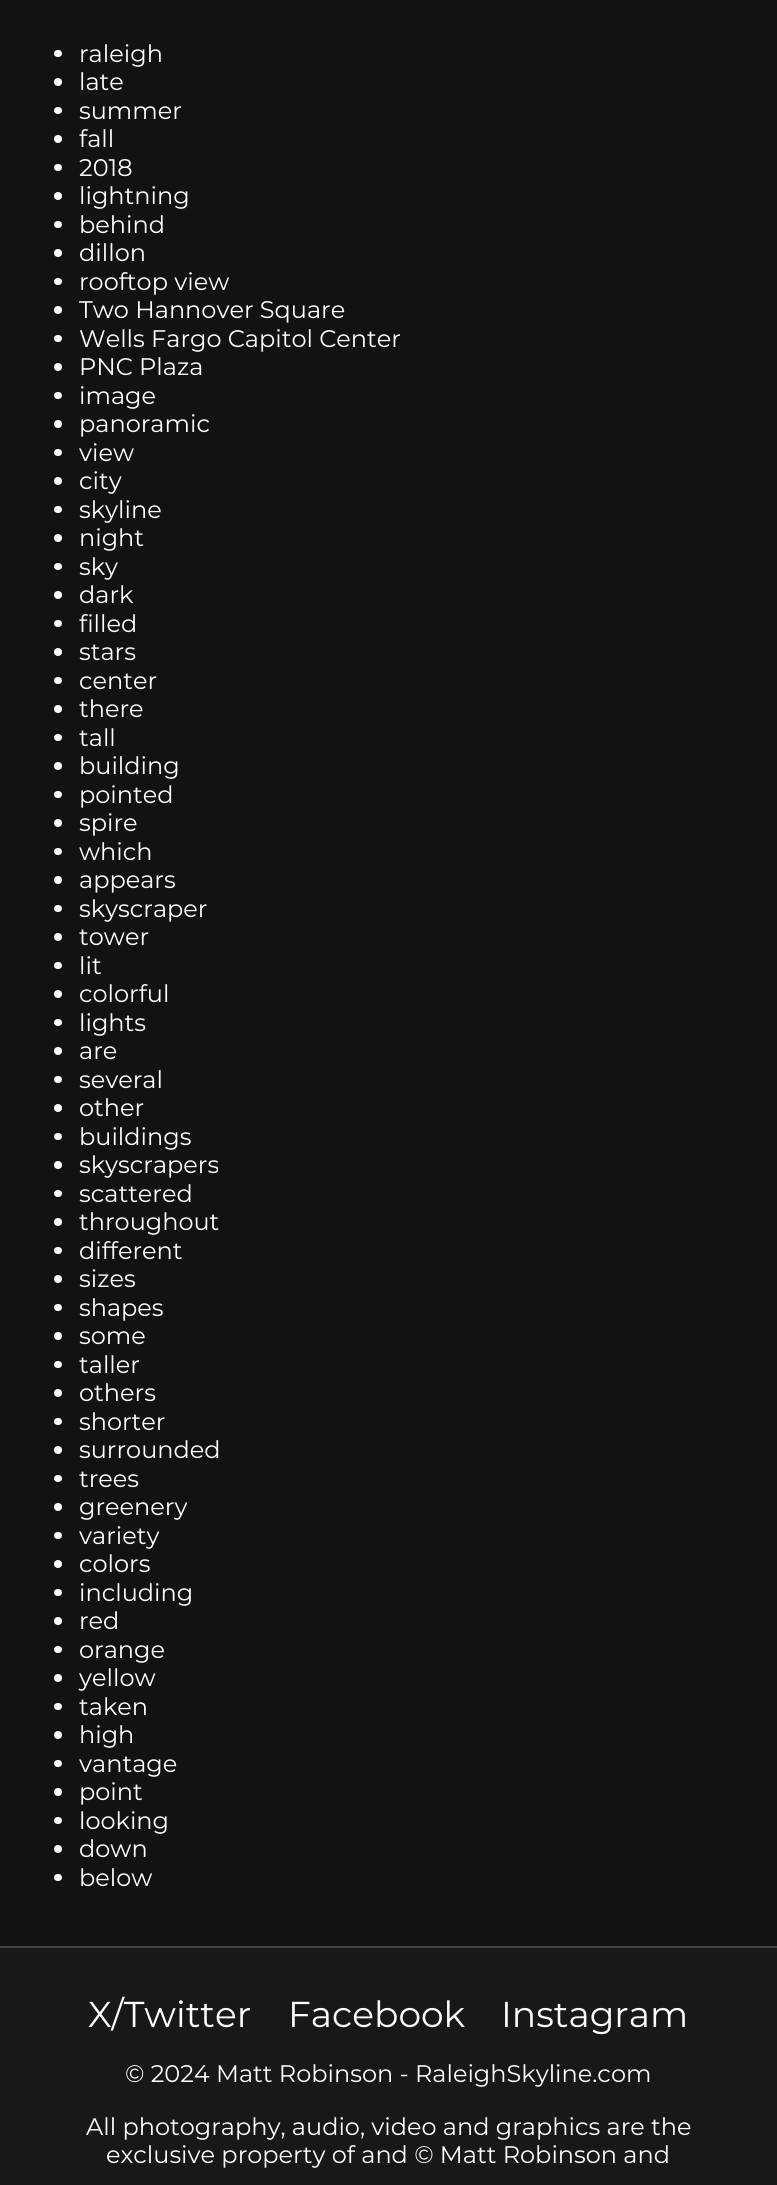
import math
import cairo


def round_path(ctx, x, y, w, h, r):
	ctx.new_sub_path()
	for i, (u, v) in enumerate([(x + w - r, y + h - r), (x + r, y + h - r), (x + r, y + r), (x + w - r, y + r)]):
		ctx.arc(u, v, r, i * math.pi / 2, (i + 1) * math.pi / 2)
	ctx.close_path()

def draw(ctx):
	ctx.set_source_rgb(0.071, 0.071, 0.071)
	ctx.paint()
	ctx.set_source_rgb(1, 1, 1)
	round_path(ctx, 54, 50, 8, 7, 3.5)
	ctx.fill()
	ctx.select_font_face('Montserrat')
	ctx.set_font_size(24)
	ctx.move_to(79, 62)
	ctx.show_text('raleigh')
	ctx.new_path()
	ctx.arc(58, 82, 4, 0, 2 * math.pi)
	ctx.fill()
	ctx.move_to(79, 90)
	ctx.show_text('late')
	round_path(ctx, 54, 107, 8, 7, 3.5)
	ctx.fill()
	ctx.move_to(79, 119)
	ctx.show_text('summer')
	ctx.new_path()
	ctx.arc(58, 139, 4, 0, 2 * math.pi)
	ctx.fill()
	ctx.move_to(79, 147)
	ctx.show_text('fall')
	round_path(ctx, 54, 164, 8, 7, 3.5)
	ctx.fill()
	ctx.move_to(79, 176)
	ctx.show_text('2018')
	ctx.new_path()
	ctx.arc(58, 196, 4, 0, 2 * math.pi)
	ctx.fill()
	ctx.move_to(79, 204)
	ctx.show_text('lightning')
	round_path(ctx, 54, 221, 8, 7, 3.5)
	ctx.fill()
	ctx.move_to(79, 233)
	ctx.show_text('behind')
	ctx.new_path()
	ctx.arc(58, 253, 4, 0, 2 * math.pi)
	ctx.fill()
	ctx.move_to(79, 261)
	ctx.show_text('dillon')
	round_path(ctx, 54, 278, 8, 7, 3.5)
	ctx.fill()
	ctx.move_to(79, 290)
	ctx.show_text('rooftop view')
	ctx.new_path()
	ctx.arc(58, 310, 4, 0, 2 * math.pi)
	ctx.fill()
	ctx.move_to(79, 318)
	ctx.show_text('Two Hannover Square')
	round_path(ctx, 54, 335, 8, 7, 3.5)
	ctx.fill()
	ctx.move_to(79, 347)
	ctx.show_text('Wells Fargo Capitol Center')
	ctx.new_path()
	ctx.arc(58, 367, 4, 0, 2 * math.pi)
	ctx.fill()
	ctx.move_to(79, 375)
	ctx.show_text('PNC Plaza')
	round_path(ctx, 54, 392, 8, 7, 3.5)
	ctx.fill()
	ctx.move_to(79, 404)
	ctx.show_text('image')
	ctx.new_path()
	ctx.arc(58, 424, 4, 0, 2 * math.pi)
	ctx.fill()
	ctx.move_to(79, 432)
	ctx.show_text('panoramic')
	round_path(ctx, 54, 449, 8, 7, 3.5)
	ctx.fill()
	ctx.move_to(79, 461)
	ctx.show_text('view')
	ctx.new_path()
	ctx.arc(58, 481, 4, 0, 2 * math.pi)
	ctx.fill()
	ctx.move_to(79, 489)
	ctx.show_text('city')
	round_path(ctx, 54, 506, 8, 7, 3.5)
	ctx.fill()
	ctx.move_to(79, 518)
	ctx.show_text('skyline')
	ctx.new_path()
	ctx.arc(58, 538, 4, 0, 2 * math.pi)
	ctx.fill()
	ctx.move_to(79, 546)
	ctx.show_text('night')
	round_path(ctx, 54, 563, 8, 7, 3.5)
	ctx.fill()
	ctx.move_to(79, 575)
	ctx.show_text('sky')
	ctx.new_path()
	ctx.arc(58, 595, 4, 0, 2 * math.pi)
	ctx.fill()
	ctx.move_to(79, 603)
	ctx.show_text('dark')
	round_path(ctx, 54, 620, 8, 7, 3.5)
	ctx.fill()
	ctx.move_to(79, 632)
	ctx.show_text('filled')
	ctx.new_path()
	ctx.arc(58, 652, 4, 0, 2 * math.pi)
	ctx.fill()
	ctx.move_to(79, 660)
	ctx.show_text('stars')
	round_path(ctx, 54, 677, 8, 7, 3.5)
	ctx.fill()
	ctx.move_to(79, 689)
	ctx.show_text('center')
	ctx.new_path()
	ctx.arc(58, 709, 4, 0, 2 * math.pi)
	ctx.fill()
	ctx.move_to(79, 717)
	ctx.show_text('there')
	round_path(ctx, 54, 734, 8, 7, 3.5)
	ctx.fill()
	ctx.move_to(79, 746)
	ctx.show_text('tall')
	ctx.new_path()
	ctx.arc(58, 766, 4, 0, 2 * math.pi)
	ctx.fill()
	ctx.move_to(79, 774)
	ctx.show_text('building')
	round_path(ctx, 54, 791, 8, 7, 3.5)
	ctx.fill()
	ctx.move_to(79, 803)
	ctx.show_text('pointed')
	ctx.new_path()
	ctx.arc(58, 823, 4, 0, 2 * math.pi)
	ctx.fill()
	ctx.move_to(79, 831)
	ctx.show_text('spire')
	round_path(ctx, 54, 848, 8, 7, 3.5)
	ctx.fill()
	ctx.move_to(79, 860)
	ctx.show_text('which')
	ctx.new_path()
	ctx.arc(58, 880, 4, 0, 2 * math.pi)
	ctx.fill()
	ctx.move_to(79, 888)
	ctx.show_text('appears')
	round_path(ctx, 54, 905, 8, 7, 3.5)
	ctx.fill()
	ctx.move_to(79, 917)
	ctx.show_text('skyscraper')
	ctx.new_path()
	ctx.arc(58, 937, 4, 0, 2 * math.pi)
	ctx.fill()
	ctx.move_to(79, 945)
	ctx.show_text('tower')
	round_path(ctx, 54, 962, 8, 7, 3.5)
	ctx.fill()
	ctx.move_to(79, 974)
	ctx.show_text('lit')
	ctx.new_path()
	ctx.arc(58, 994, 4, 0, 2 * math.pi)
	ctx.fill()
	ctx.move_to(79, 1002)
	ctx.show_text('colorful')
	round_path(ctx, 54, 1019, 8, 7, 3.5)
	ctx.fill()
	ctx.move_to(79, 1031)
	ctx.show_text('lights')
	ctx.new_path()
	ctx.arc(58, 1051, 4, 0, 2 * math.pi)
	ctx.fill()
	ctx.move_to(79, 1059)
	ctx.show_text('are')
	round_path(ctx, 54, 1076, 8, 7, 3.5)
	ctx.fill()
	ctx.move_to(79, 1088)
	ctx.show_text('several')
	ctx.new_path()
	ctx.arc(58, 1108, 4, 0, 2 * math.pi)
	ctx.fill()
	ctx.move_to(79, 1116)
	ctx.show_text('other')
	round_path(ctx, 54, 1133, 8, 7, 3.5)
	ctx.fill()
	ctx.move_to(79, 1145)
	ctx.show_text('buildings')
	ctx.new_path()
	ctx.arc(58, 1165, 4, 0, 2 * math.pi)
	ctx.fill()
	ctx.move_to(79, 1173)
	ctx.show_text('skyscrapers')
	round_path(ctx, 54, 1190, 8, 7, 3.5)
	ctx.fill()
	ctx.move_to(79, 1202)
	ctx.show_text('scattered')
	ctx.new_path()
	ctx.arc(58, 1222, 4, 0, 2 * math.pi)
	ctx.fill()
	ctx.move_to(79, 1230)
	ctx.show_text('throughout')
	round_path(ctx, 54, 1247, 8, 7, 3.5)
	ctx.fill()
	ctx.move_to(79, 1259)
	ctx.show_text('different')
	ctx.new_path()
	ctx.arc(58, 1279, 4, 0, 2 * math.pi)
	ctx.fill()
	ctx.move_to(79, 1287)
	ctx.show_text('sizes')
	round_path(ctx, 54, 1304, 8, 7, 3.5)
	ctx.fill()
	ctx.move_to(79, 1316)
	ctx.show_text('shapes')
	ctx.new_path()
	ctx.arc(58, 1336, 4, 0, 2 * math.pi)
	ctx.fill()
	ctx.move_to(79, 1344)
	ctx.show_text('some')
	round_path(ctx, 54, 1361, 8, 7, 3.5)
	ctx.fill()
	ctx.move_to(79, 1373)
	ctx.show_text('taller')
	ctx.new_path()
	ctx.arc(58, 1393, 4, 0, 2 * math.pi)
	ctx.fill()
	ctx.move_to(79, 1401)
	ctx.show_text('others')
	round_path(ctx, 54, 1418, 8, 7, 3.5)
	ctx.fill()
	ctx.move_to(79, 1430)
	ctx.show_text('shorter')
	ctx.new_path()
	ctx.arc(58, 1450, 4, 0, 2 * math.pi)
	ctx.fill()
	ctx.move_to(79, 1458)
	ctx.show_text('surrounded')
	round_path(ctx, 54, 1475, 8, 7, 3.5)
	ctx.fill()
	ctx.move_to(79, 1487)
	ctx.show_text('trees')
	ctx.new_path()
	ctx.arc(58, 1507, 4, 0, 2 * math.pi)
	ctx.fill()
	ctx.move_to(79, 1515)
	ctx.show_text('greenery')
	round_path(ctx, 54, 1532, 8, 7, 3.5)
	ctx.fill()
	ctx.move_to(79, 1544)
	ctx.show_text('variety')
	ctx.new_path()
	ctx.arc(58, 1564, 4, 0, 2 * math.pi)
	ctx.fill()
	ctx.move_to(79, 1572)
	ctx.show_text('colors')
	round_path(ctx, 54, 1589, 8, 7, 3.5)
	ctx.fill()
	ctx.move_to(79, 1601)
	ctx.show_text('including')
	ctx.new_path()
	ctx.arc(58, 1621, 4, 0, 2 * math.pi)
	ctx.fill()
	ctx.move_to(79, 1629)
	ctx.show_text('red')
	round_path(ctx, 54, 1646, 8, 7, 3.5)
	ctx.fill()
	ctx.move_to(79, 1658)
	ctx.show_text('orange')
	ctx.new_path()
	ctx.arc(58, 1678, 4, 0, 2 * math.pi)
	ctx.fill()
	ctx.move_to(79, 1686)
	ctx.show_text('yellow')
	round_path(ctx, 54, 1703, 8, 7, 3.5)
	ctx.fill()
	ctx.move_to(79, 1715)
	ctx.show_text('taken')
	ctx.new_path()
	ctx.arc(58, 1735, 4, 0, 2 * math.pi)
	ctx.fill()
	ctx.move_to(79, 1743)
	ctx.show_text('high')
	round_path(ctx, 54, 1760, 8, 7, 3.5)
	ctx.fill()
	ctx.move_to(79, 1772)
	ctx.show_text('vantage')
	ctx.new_path()
	ctx.arc(58, 1792, 4, 0, 2 * math.pi)
	ctx.fill()
	ctx.move_to(79, 1800)
	ctx.show_text('point')
	round_path(ctx, 54, 1817, 8, 7, 3.5)
	ctx.fill()
	ctx.move_to(79, 1829)
	ctx.show_text('looking')
	ctx.new_path()
	ctx.arc(58, 1849, 4, 0, 2 * math.pi)
	ctx.fill()
	ctx.move_to(79, 1857)
	ctx.show_text('down')
	round_path(ctx, 54, 1874, 8, 7, 3.5)
	ctx.fill()
	ctx.move_to(79, 1886)
	ctx.show_text('below')
	ctx.set_source_rgb(0.094, 0.094, 0.094)
	ctx.rectangle(0, 1948, 777, 237)
	ctx.fill()
	ctx.set_source_rgb(0.267, 0.267, 0.267)
	ctx.rectangle(0, 1946, 777, 2)
	ctx.fill()
	ctx.set_font_size(36)
	ctx.set_source_rgb(1, 1, 1)
	for x, y, s in [
		(88, 2027, 'X/Twitter'),
		(288, 2027, 'Facebook'),
		(501, 2027, 'Instagram'),
	]:
		ctx.move_to(x, y)
		ctx.show_text(s)
	ctx.set_font_size(24)
	for x, y, s in [
		(125, 2082, '© 2024 Matt Robinson - RaleighSkyline.com'),
		(86, 2135, 'All photography, audio, video and graphics are the'),
		(106, 2163, 'exclusive property of and © Matt Robinson and'),
	]:
		ctx.move_to(x, y)
		ctx.show_text(s)


surface = cairo.ImageSurface(cairo.FORMAT_RGB24, 777, 2185)
ctx = cairo.Context(surface)
options = cairo.FontOptions()
options.set_hint_metrics(cairo.HINT_METRICS_OFF)
options.set_hint_style(cairo.HINT_STYLE_NONE)
ctx.set_font_options(options)
ctx.set_miter_limit(4)
draw(ctx)
surface.write_to_png('image.png')
